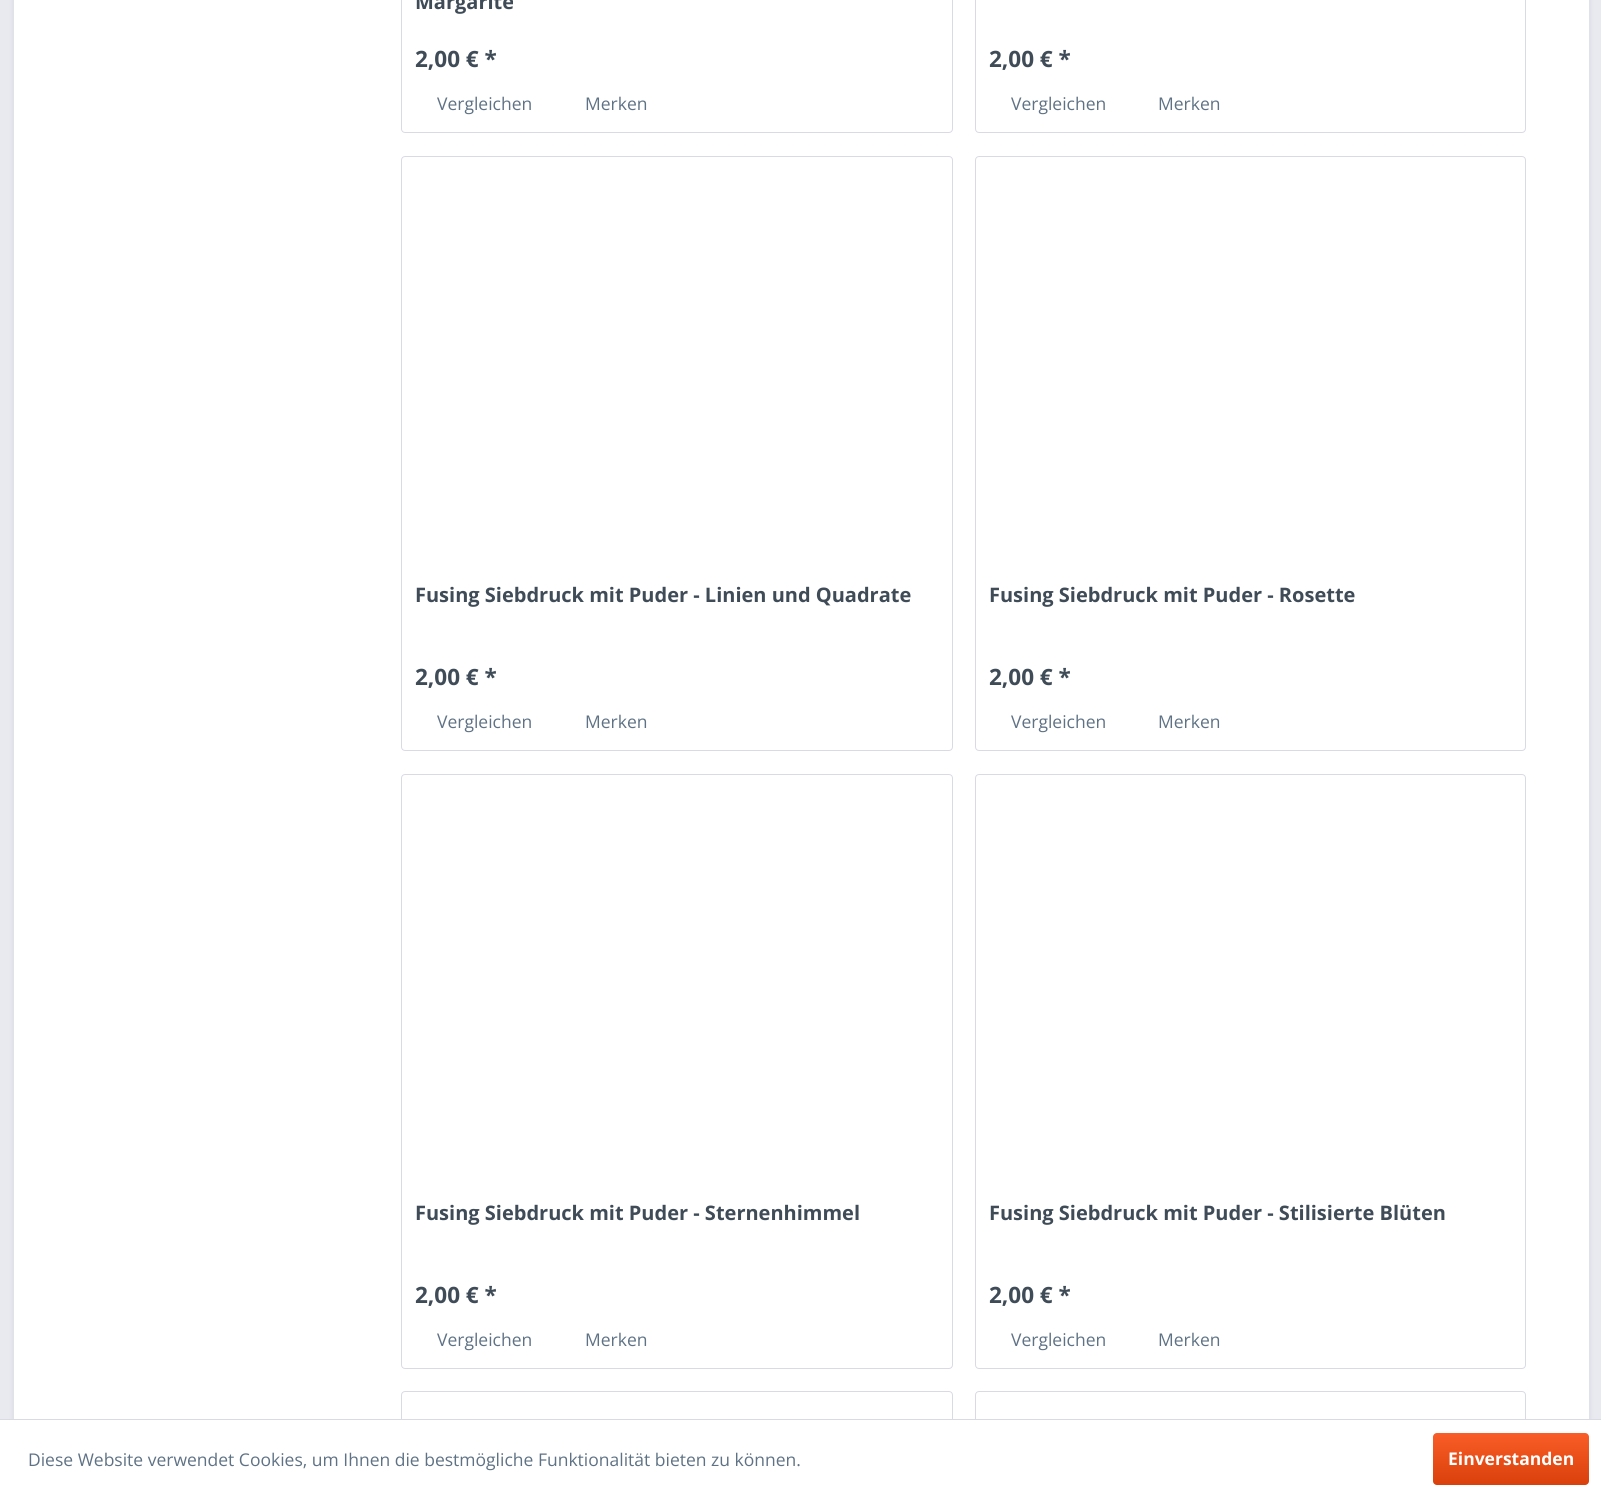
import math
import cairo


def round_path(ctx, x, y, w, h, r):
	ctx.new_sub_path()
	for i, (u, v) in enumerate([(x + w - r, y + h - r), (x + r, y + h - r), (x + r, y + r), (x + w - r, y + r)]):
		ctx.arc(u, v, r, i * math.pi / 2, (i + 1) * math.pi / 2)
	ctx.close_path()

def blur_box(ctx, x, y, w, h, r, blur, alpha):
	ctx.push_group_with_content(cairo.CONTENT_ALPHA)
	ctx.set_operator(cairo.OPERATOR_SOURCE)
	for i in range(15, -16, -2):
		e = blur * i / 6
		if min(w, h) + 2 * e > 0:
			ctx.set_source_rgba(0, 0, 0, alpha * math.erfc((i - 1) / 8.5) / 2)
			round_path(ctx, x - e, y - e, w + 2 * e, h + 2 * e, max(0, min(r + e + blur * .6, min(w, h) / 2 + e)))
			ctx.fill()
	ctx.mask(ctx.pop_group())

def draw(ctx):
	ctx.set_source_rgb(0.914, 0.914, 0.941)
	ctx.paint()
	ctx.set_source_rgb(0.855, 0.855, 0.898)
	blur_box(ctx, 13, -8, 1577, 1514, 0, 2.5, 1)
	ctx.set_source_rgb(1, 1, 1)
	ctx.rectangle(14, 0, 1575, 1419)
	ctx.fill()
	round_path(ctx, 401.5, -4.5, 551, 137, 3.5)
	ctx.set_source_rgb(0.855, 0.855, 0.898)
	ctx.set_line_width(1)
	ctx.stroke()
	ctx.select_font_face('Open Sans', cairo.FONT_SLANT_NORMAL, cairo.FONT_WEIGHT_BOLD)
	ctx.set_font_size(20)
	ctx.set_source_rgb(0.247, 0.298, 0.345)
	ctx.move_to(415, 9)
	ctx.show_text('Margarite')
	ctx.set_font_size(22.5)
	ctx.move_to(415, 67)
	ctx.show_text('2,00 € *')
	ctx.select_font_face('Open Sans')
	ctx.set_font_size(17.5)
	ctx.set_source_rgb(0.373, 0.447, 0.522)
	ctx.move_to(437, 110)
	ctx.show_text('Vergleichen')
	ctx.move_to(585, 110)
	ctx.show_text('Merken')
	round_path(ctx, 975.5, -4.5, 550, 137, 3.5)
	ctx.set_source_rgb(0.855, 0.855, 0.898)
	ctx.stroke()
	ctx.select_font_face('Open Sans', cairo.FONT_SLANT_NORMAL, cairo.FONT_WEIGHT_BOLD)
	ctx.set_font_size(22.5)
	ctx.set_source_rgb(0.247, 0.298, 0.345)
	ctx.move_to(989, 67)
	ctx.show_text('2,00 € *')
	ctx.select_font_face('Open Sans')
	ctx.set_font_size(17.5)
	ctx.set_source_rgb(0.373, 0.447, 0.522)
	ctx.move_to(1011, 110)
	ctx.show_text('Vergleichen')
	ctx.move_to(1158, 110)
	ctx.show_text('Merken')
	round_path(ctx, 401.5, 156.5, 551, 594, 3.5)
	ctx.set_source_rgb(0.855, 0.855, 0.898)
	ctx.stroke()
	ctx.select_font_face('Open Sans', cairo.FONT_SLANT_NORMAL, cairo.FONT_WEIGHT_BOLD)
	ctx.set_font_size(20)
	ctx.set_source_rgb(0.247, 0.298, 0.345)
	ctx.move_to(415, 602)
	ctx.show_text('Fusing Siebdruck mit Puder - Linien und Quadrate')
	ctx.set_font_size(22.5)
	ctx.move_to(415, 685)
	ctx.show_text('2,00 € *')
	ctx.select_font_face('Open Sans')
	ctx.set_font_size(17.5)
	ctx.set_source_rgb(0.373, 0.447, 0.522)
	ctx.move_to(437, 728)
	ctx.show_text('Vergleichen')
	ctx.move_to(585, 728)
	ctx.show_text('Merken')
	round_path(ctx, 975.5, 156.5, 550, 594, 3.5)
	ctx.set_source_rgb(0.855, 0.855, 0.898)
	ctx.stroke()
	ctx.select_font_face('Open Sans', cairo.FONT_SLANT_NORMAL, cairo.FONT_WEIGHT_BOLD)
	ctx.set_font_size(20)
	ctx.set_source_rgb(0.247, 0.298, 0.345)
	ctx.move_to(989, 602)
	ctx.show_text('Fusing Siebdruck mit Puder - Rosette')
	ctx.set_font_size(22.5)
	ctx.move_to(989, 685)
	ctx.show_text('2,00 € *')
	ctx.select_font_face('Open Sans')
	ctx.set_font_size(17.5)
	ctx.set_source_rgb(0.373, 0.447, 0.522)
	ctx.move_to(1011, 728)
	ctx.show_text('Vergleichen')
	ctx.move_to(1158, 728)
	ctx.show_text('Merken')
	round_path(ctx, 401.5, 774.5, 551, 594, 3.5)
	ctx.set_source_rgb(0.855, 0.855, 0.898)
	ctx.stroke()
	ctx.select_font_face('Open Sans', cairo.FONT_SLANT_NORMAL, cairo.FONT_WEIGHT_BOLD)
	ctx.set_font_size(20)
	ctx.set_source_rgb(0.247, 0.298, 0.345)
	ctx.move_to(415, 1220)
	ctx.show_text('Fusing Siebdruck mit Puder - Sternenhimmel')
	ctx.set_font_size(22.5)
	ctx.move_to(415, 1303)
	ctx.show_text('2,00 € *')
	ctx.select_font_face('Open Sans')
	ctx.set_font_size(17.5)
	ctx.set_source_rgb(0.373, 0.447, 0.522)
	ctx.move_to(437, 1346)
	ctx.show_text('Vergleichen')
	ctx.move_to(585, 1346)
	ctx.show_text('Merken')
	round_path(ctx, 975.5, 774.5, 550, 594, 3.5)
	ctx.set_source_rgb(0.855, 0.855, 0.898)
	ctx.stroke()
	ctx.select_font_face('Open Sans', cairo.FONT_SLANT_NORMAL, cairo.FONT_WEIGHT_BOLD)
	ctx.set_font_size(20)
	ctx.set_source_rgb(0.247, 0.298, 0.345)
	ctx.move_to(989, 1220)
	ctx.show_text('Fusing Siebdruck mit Puder - Stilisierte Blüten')
	ctx.set_font_size(22.5)
	ctx.move_to(989, 1303)
	ctx.show_text('2,00 € *')
	ctx.select_font_face('Open Sans')
	ctx.set_font_size(17.5)
	ctx.set_source_rgb(0.373, 0.447, 0.522)
	ctx.move_to(1011, 1346)
	ctx.show_text('Vergleichen')
	ctx.move_to(1158, 1346)
	ctx.show_text('Merken')
	round_path(ctx, 401.5, 1391.5, 551, 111, 3.5)
	ctx.set_source_rgb(0.855, 0.855, 0.898)
	ctx.stroke()
	round_path(ctx, 975.5, 1391.5, 550, 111, 3.5)
	ctx.stroke()
	ctx.set_source_rgb(1, 1, 1)
	ctx.rectangle(0, 1420, 1601, 78)
	ctx.fill()
	ctx.set_source_rgb(0.855, 0.855, 0.898)
	ctx.rectangle(0, 1419, 1601, 1)
	ctx.fill()
	ctx.set_source_rgb(0.373, 0.447, 0.522)
	ctx.move_to(28, 1466)
	ctx.show_text('Diese Website verwendet Cookies, um Ihnen die bestmögliche Funktionalität bieten zu können.')
	gradient = cairo.LinearGradient(1511, 1433, 1511, 1485)
	gradient.add_color_stop_rgba(0, 0.98, 0.365, 0.153, 1)
	gradient.add_color_stop_rgba(1, 0.851, 0.251, 0.043, 1)
	ctx.set_source(gradient)
	round_path(ctx, 1433, 1433, 156, 52, 4)
	ctx.fill()
	ctx.select_font_face('Open Sans', cairo.FONT_SLANT_NORMAL, cairo.FONT_WEIGHT_BOLD)
	ctx.set_source_rgb(1, 1, 1)
	ctx.move_to(1448, 1465)
	ctx.show_text('Einverstanden')


surface = cairo.ImageSurface(cairo.FORMAT_RGB24, 1601, 1498)
ctx = cairo.Context(surface)
options = cairo.FontOptions()
options.set_hint_metrics(cairo.HINT_METRICS_OFF)
options.set_hint_style(cairo.HINT_STYLE_NONE)
ctx.set_font_options(options)
ctx.set_miter_limit(4)
draw(ctx)
surface.write_to_png('image.png')
